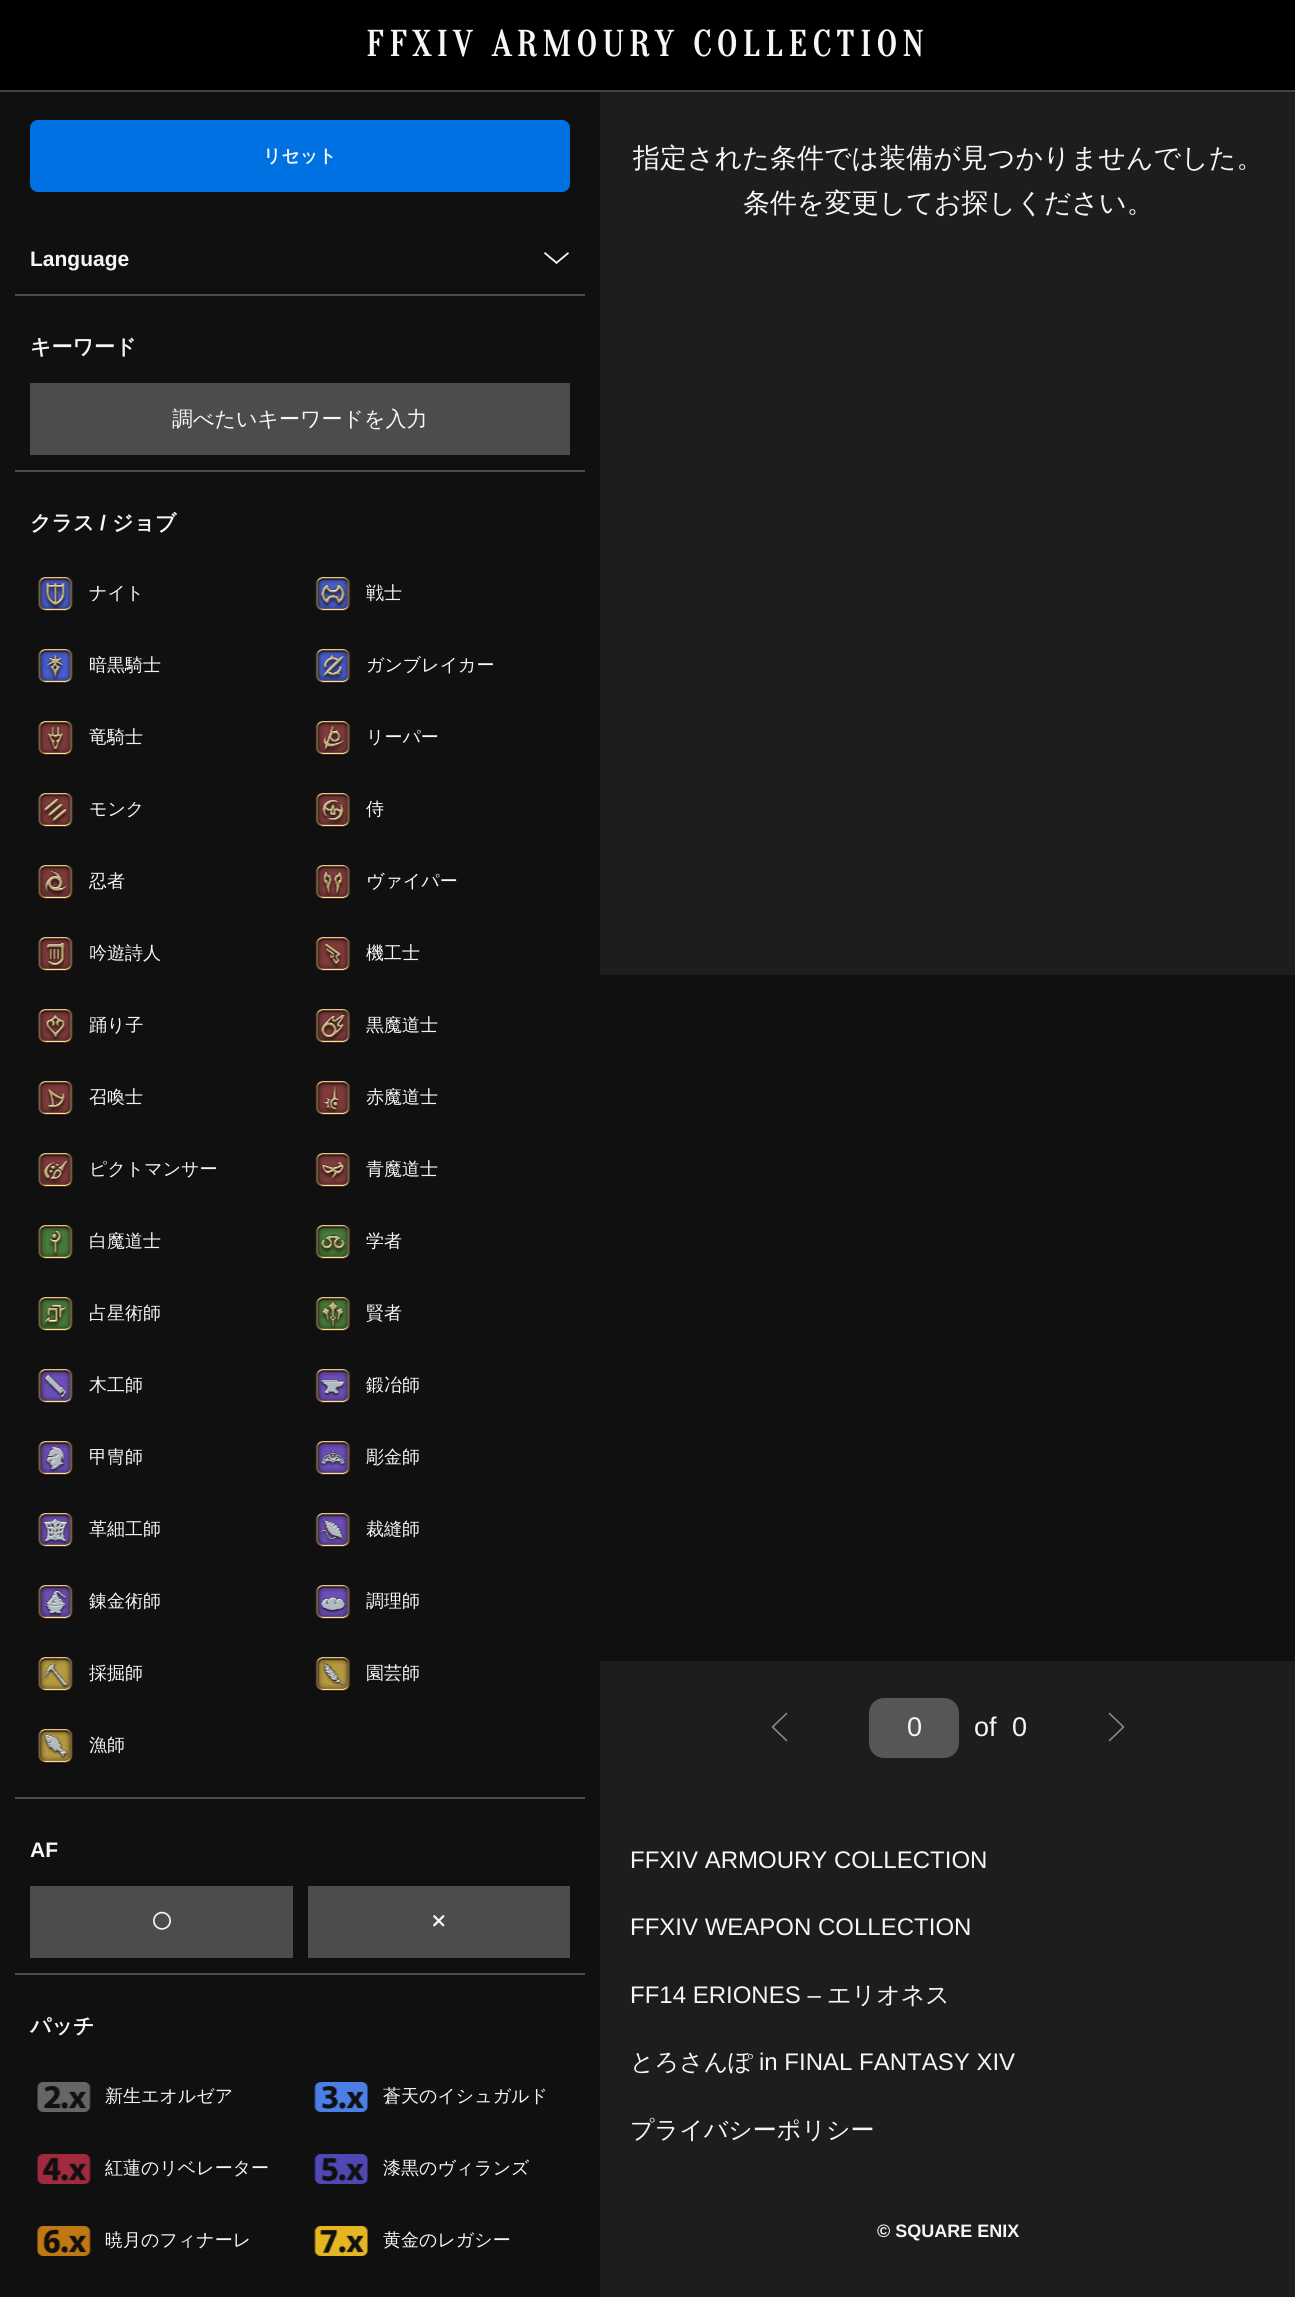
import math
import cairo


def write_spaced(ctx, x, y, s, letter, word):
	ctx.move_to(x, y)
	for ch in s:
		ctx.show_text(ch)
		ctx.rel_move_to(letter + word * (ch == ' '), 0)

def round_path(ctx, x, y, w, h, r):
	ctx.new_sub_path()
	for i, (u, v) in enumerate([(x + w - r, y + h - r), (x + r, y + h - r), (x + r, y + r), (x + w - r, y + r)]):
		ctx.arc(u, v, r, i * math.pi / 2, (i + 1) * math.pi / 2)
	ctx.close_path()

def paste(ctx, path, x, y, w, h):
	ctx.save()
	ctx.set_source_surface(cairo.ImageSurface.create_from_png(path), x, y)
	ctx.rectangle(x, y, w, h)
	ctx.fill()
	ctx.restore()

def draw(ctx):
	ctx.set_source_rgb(0.063, 0.063, 0.063)
	ctx.paint()
	ctx.set_source_rgb(0, 0, 0)
	ctx.rectangle(0, 0, 1295, 90)
	ctx.fill()
	ctx.set_source_rgb(0.259, 0.259, 0.271)
	ctx.rectangle(0, 90, 1295, 2)
	ctx.fill()
	ctx.select_font_face('Oranienbaum', cairo.FONT_SLANT_NORMAL, cairo.FONT_WEIGHT_BOLD)
	ctx.set_font_size(36)
	ctx.set_source_rgb(0.961, 0.961, 0.969)
	write_spaced(ctx, 366, 56, 'FFXIV ARMOURY COLLECTION', 6, 0)
	ctx.set_source_rgb(0, 0.443, 0.89)
	round_path(ctx, 30, 120, 540, 72, 8)
	ctx.fill()
	ctx.select_font_face('WenQuanYi Zen Hei', cairo.FONT_SLANT_NORMAL, cairo.FONT_WEIGHT_BOLD)
	ctx.set_font_size(18)
	ctx.set_source_rgb(0.961, 0.961, 0.969)
	ctx.move_to(263, 162)
	ctx.show_text('リセット')
	ctx.select_font_face('Liberation Sans', cairo.FONT_SLANT_NORMAL, cairo.FONT_WEIGHT_BOLD)
	ctx.set_font_size(21)
	ctx.move_to(30, 266)
	ctx.show_text('Language')
	ctx.new_path()
	ctx.move_to(545, 252)
	ctx.line_to(557.5, 262.5)
	ctx.line_to(556.5, 264)
	ctx.line_to(544, 253.5)
	ctx.close_path()
	ctx.fill()
	ctx.new_path()
	ctx.move_to(555.5, 262.5)
	ctx.line_to(568, 252)
	ctx.line_to(569, 253.5)
	ctx.line_to(556.5, 264)
	ctx.close_path()
	ctx.fill()
	ctx.set_source_rgb(0.298, 0.298, 0.298)
	ctx.rectangle(15, 294, 570, 2)
	ctx.fill()
	ctx.select_font_face('WenQuanYi Zen Hei', cairo.FONT_SLANT_NORMAL, cairo.FONT_WEIGHT_BOLD)
	ctx.set_source_rgb(0.961, 0.961, 0.969)
	ctx.move_to(30, 354)
	ctx.show_text('キーワード')
	ctx.set_source_rgb(0.298, 0.298, 0.298)
	ctx.rectangle(30, 383, 540, 72)
	ctx.fill()
	ctx.select_font_face('WenQuanYi Zen Hei Medium')
	ctx.set_source_rgb(0.961, 0.961, 0.969)
	ctx.move_to(172, 426)
	ctx.show_text('調べたいキーワードを入力')
	ctx.set_source_rgb(0.298, 0.298, 0.298)
	ctx.rectangle(15, 470, 570, 2)
	ctx.fill()
	ctx.select_font_face('WenQuanYi Zen Hei', cairo.FONT_SLANT_NORMAL, cairo.FONT_WEIGHT_BOLD)
	ctx.set_source_rgb(0.961, 0.961, 0.969)
	ctx.move_to(30, 530)
	ctx.show_text('クラス')
	ctx.select_font_face('Liberation Sans', cairo.FONT_SLANT_NORMAL, cairo.FONT_WEIGHT_BOLD)
	ctx.move_to(100, 530)
	ctx.show_text('/')
	ctx.select_font_face('WenQuanYi Zen Hei', cairo.FONT_SLANT_NORMAL, cairo.FONT_WEIGHT_BOLD)
	ctx.move_to(112, 530)
	ctx.show_text('ジョブ')
	paste(ctx, 'media/1.png', 38, 577, 35, 35)
	ctx.select_font_face('WenQuanYi Zen Hei Medium')
	ctx.set_font_size(18)
	ctx.move_to(89, 599)
	ctx.show_text('ナイト')
	paste(ctx, 'media/2.png', 315, 577, 36, 35)
	ctx.move_to(366, 599)
	ctx.show_text('戦士')
	paste(ctx, 'media/3.png', 38, 649, 35, 35)
	ctx.move_to(89, 671)
	ctx.show_text('暗黒騎士')
	paste(ctx, 'media/4.png', 315, 649, 36, 35)
	ctx.move_to(366, 671)
	ctx.show_text('ガンブレイカー')
	paste(ctx, 'media/5.png', 38, 721, 35, 35)
	ctx.move_to(89, 743)
	ctx.show_text('竜騎士')
	paste(ctx, 'media/6.png', 315, 721, 36, 35)
	ctx.move_to(366, 743)
	ctx.show_text('リーパー')
	paste(ctx, 'media/7.png', 38, 793, 35, 35)
	ctx.move_to(89, 815)
	ctx.show_text('モンク')
	paste(ctx, 'media/8.png', 315, 793, 36, 35)
	ctx.move_to(366, 815)
	ctx.show_text('侍')
	paste(ctx, 'media/9.png', 38, 865, 35, 35)
	ctx.move_to(89, 887)
	ctx.show_text('忍者')
	paste(ctx, 'media/10.png', 315, 865, 36, 35)
	ctx.move_to(366, 887)
	ctx.show_text('ヴァイパー')
	paste(ctx, 'media/11.png', 38, 937, 35, 35)
	ctx.move_to(89, 959)
	ctx.show_text('吟遊詩人')
	paste(ctx, 'media/12.png', 315, 937, 36, 35)
	ctx.move_to(366, 959)
	ctx.show_text('機工士')
	paste(ctx, 'media/13.png', 38, 1009, 35, 35)
	ctx.move_to(89, 1031)
	ctx.show_text('踊り子')
	paste(ctx, 'media/14.png', 315, 1009, 36, 35)
	ctx.move_to(366, 1031)
	ctx.show_text('黒魔道士')
	paste(ctx, 'media/15.png', 38, 1081, 35, 35)
	ctx.move_to(89, 1103)
	ctx.show_text('召喚士')
	paste(ctx, 'media/16.png', 315, 1081, 36, 35)
	ctx.move_to(366, 1103)
	ctx.show_text('赤魔道士')
	paste(ctx, 'media/17.png', 38, 1153, 35, 35)
	ctx.move_to(89, 1175)
	ctx.show_text('ピクトマンサー')
	paste(ctx, 'media/18.png', 315, 1153, 36, 35)
	ctx.move_to(366, 1175)
	ctx.show_text('青魔道士')
	paste(ctx, 'media/19.png', 38, 1225, 35, 35)
	ctx.move_to(89, 1247)
	ctx.show_text('白魔道士')
	paste(ctx, 'media/20.png', 315, 1225, 36, 35)
	ctx.move_to(366, 1247)
	ctx.show_text('学者')
	paste(ctx, 'media/21.png', 38, 1297, 35, 35)
	ctx.move_to(89, 1319)
	ctx.show_text('占星術師')
	paste(ctx, 'media/22.png', 315, 1297, 36, 35)
	ctx.move_to(366, 1319)
	ctx.show_text('賢者')
	paste(ctx, 'media/23.png', 38, 1369, 35, 35)
	ctx.move_to(89, 1391)
	ctx.show_text('木工師')
	paste(ctx, 'media/24.png', 315, 1369, 36, 35)
	ctx.move_to(366, 1391)
	ctx.show_text('鍛冶師')
	paste(ctx, 'media/25.png', 38, 1441, 35, 35)
	ctx.move_to(89, 1463)
	ctx.show_text('甲冑師')
	paste(ctx, 'media/26.png', 315, 1441, 36, 35)
	ctx.move_to(366, 1463)
	ctx.show_text('彫金師')
	paste(ctx, 'media/27.png', 38, 1513, 35, 35)
	ctx.move_to(89, 1535)
	ctx.show_text('革細工師')
	paste(ctx, 'media/28.png', 315, 1513, 36, 35)
	ctx.move_to(366, 1535)
	ctx.show_text('裁縫師')
	paste(ctx, 'media/29.png', 38, 1585, 35, 35)
	ctx.move_to(89, 1607)
	ctx.show_text('錬金術師')
	paste(ctx, 'media/30.png', 315, 1585, 36, 35)
	ctx.move_to(366, 1607)
	ctx.show_text('調理師')
	paste(ctx, 'media/31.png', 38, 1657, 35, 35)
	ctx.move_to(89, 1679)
	ctx.show_text('採掘師')
	paste(ctx, 'media/32.png', 315, 1657, 36, 35)
	ctx.move_to(366, 1679)
	ctx.show_text('園芸師')
	paste(ctx, 'media/33.png', 38, 1729, 35, 35)
	ctx.move_to(89, 1751)
	ctx.show_text('漁師')
	ctx.set_source_rgb(0.298, 0.298, 0.298)
	ctx.rectangle(15, 1797, 570, 2)
	ctx.fill()
	ctx.select_font_face('Liberation Sans', cairo.FONT_SLANT_NORMAL, cairo.FONT_WEIGHT_BOLD)
	ctx.set_font_size(21)
	ctx.set_source_rgb(0.961, 0.961, 0.969)
	ctx.move_to(30, 1857)
	ctx.show_text('AF')
	ctx.set_source_rgb(0.298, 0.298, 0.298)
	ctx.rectangle(30, 1886, 263, 72)
	ctx.fill()
	paste(ctx, 'media/34.png', 153, 1911, 18, 19)
	ctx.rectangle(308, 1886, 262, 72)
	ctx.fill()
	paste(ctx, 'media/35.png', 433, 1915, 12, 12)
	ctx.rectangle(15, 1973, 570, 2)
	ctx.fill()
	ctx.select_font_face('WenQuanYi Zen Hei', cairo.FONT_SLANT_NORMAL, cairo.FONT_WEIGHT_BOLD)
	ctx.set_source_rgb(0.961, 0.961, 0.969)
	ctx.move_to(30, 2033)
	ctx.show_text('パッチ')
	paste(ctx, 'media/36.png', 37, 2082, 54, 30)
	ctx.select_font_face('WenQuanYi Zen Hei Medium')
	ctx.set_font_size(18)
	ctx.move_to(105, 2102)
	ctx.show_text('新生エオルゼア')
	paste(ctx, 'media/37.png', 314, 2082, 54, 30)
	ctx.move_to(383, 2102)
	ctx.show_text('蒼天のイシュガルド')
	paste(ctx, 'media/38.png', 37, 2154, 54, 30)
	ctx.move_to(105, 2174)
	ctx.show_text('紅蓮のリベレーター')
	paste(ctx, 'media/39.png', 314, 2154, 54, 30)
	ctx.move_to(383, 2174)
	ctx.show_text('漆黒のヴィランズ')
	paste(ctx, 'media/40.png', 37, 2226, 54, 30)
	ctx.move_to(105, 2246)
	ctx.show_text('暁月のフィナーレ')
	paste(ctx, 'media/41.png', 314, 2226, 54, 30)
	ctx.move_to(383, 2246)
	ctx.show_text('黄金のレガシー')
	ctx.set_source_rgb(0.114, 0.114, 0.122)
	ctx.rectangle(600, 92, 695, 883)
	ctx.fill()
	ctx.set_font_size(27)
	ctx.set_source_rgb(0.961, 0.961, 0.969)
	ctx.move_to(633, 167)
	ctx.show_text('指定された条件では装備が見つかりませんでした。')
	ctx.move_to(743, 212)
	ctx.show_text('条件を変更してお探しください。')
	ctx.set_source_rgb(0.114, 0.114, 0.122)
	ctx.rectangle(600, 1661, 695, 636)
	ctx.fill()
	ctx.new_path()
	ctx.move_to(786.5, 1740.5)
	ctx.line_to(772.5, 1727)
	ctx.line_to(786.5, 1713.5)
	ctx.set_source_rgb(0.557, 0.557, 0.561)
	ctx.set_line_width(1.5)
	ctx.set_line_cap(cairo.LINE_CAP_ROUND)
	ctx.set_line_join(cairo.LINE_JOIN_ROUND)
	ctx.stroke()
	ctx.set_source_rgb(0.337, 0.337, 0.341)
	round_path(ctx, 869, 1698, 90, 60, 15)
	ctx.fill()
	ctx.select_font_face('Liberation Sans')
	ctx.set_source_rgb(0.961, 0.961, 0.969)
	for x, y, s in [
		(907, 1736, '0'),
		(974, 1736, 'of'),
		(1012, 1736, '0'),
	]:
		ctx.move_to(x, y)
		ctx.show_text(s)
	ctx.new_path()
	ctx.move_to(1109.5, 1713.5)
	ctx.line_to(1123.5, 1727)
	ctx.line_to(1109.5, 1740.5)
	ctx.set_source_rgb(0.557, 0.557, 0.561)
	ctx.stroke()
	ctx.set_font_size(24)
	ctx.set_source_rgb(0.961, 0.961, 0.969)
	for x, y, s in [
		(630, 1868, 'FFXIV ARMOURY COLLECTION'),
		(630, 1935, 'FFXIV WEAPON COLLECTION'),
		(630, 2003, 'FF14 ERIONES –'),
	]:
		ctx.move_to(x, y)
		ctx.show_text(s)
	ctx.select_font_face('WenQuanYi Zen Hei Medium')
	ctx.move_to(827, 2003)
	ctx.show_text('エリオネス')
	ctx.move_to(630, 2070)
	ctx.show_text('とろさんぽ')
	ctx.select_font_face('Liberation Sans')
	ctx.move_to(759, 2070)
	ctx.show_text('in FINAL FANTASY XIV')
	ctx.select_font_face('WenQuanYi Zen Hei Medium')
	ctx.move_to(630, 2138)
	ctx.show_text('プライバシーポリシー')
	ctx.select_font_face('Liberation Sans', cairo.FONT_SLANT_NORMAL, cairo.FONT_WEIGHT_BOLD)
	ctx.set_font_size(18)
	ctx.move_to(877, 2237)
	ctx.show_text('© SQUARE ENIX')


surface = cairo.ImageSurface(cairo.FORMAT_RGB24, 1295, 2297)
ctx = cairo.Context(surface)
options = cairo.FontOptions()
options.set_hint_metrics(cairo.HINT_METRICS_OFF)
options.set_hint_style(cairo.HINT_STYLE_NONE)
ctx.set_font_options(options)
ctx.set_miter_limit(4)
draw(ctx)
surface.write_to_png('image.png')
